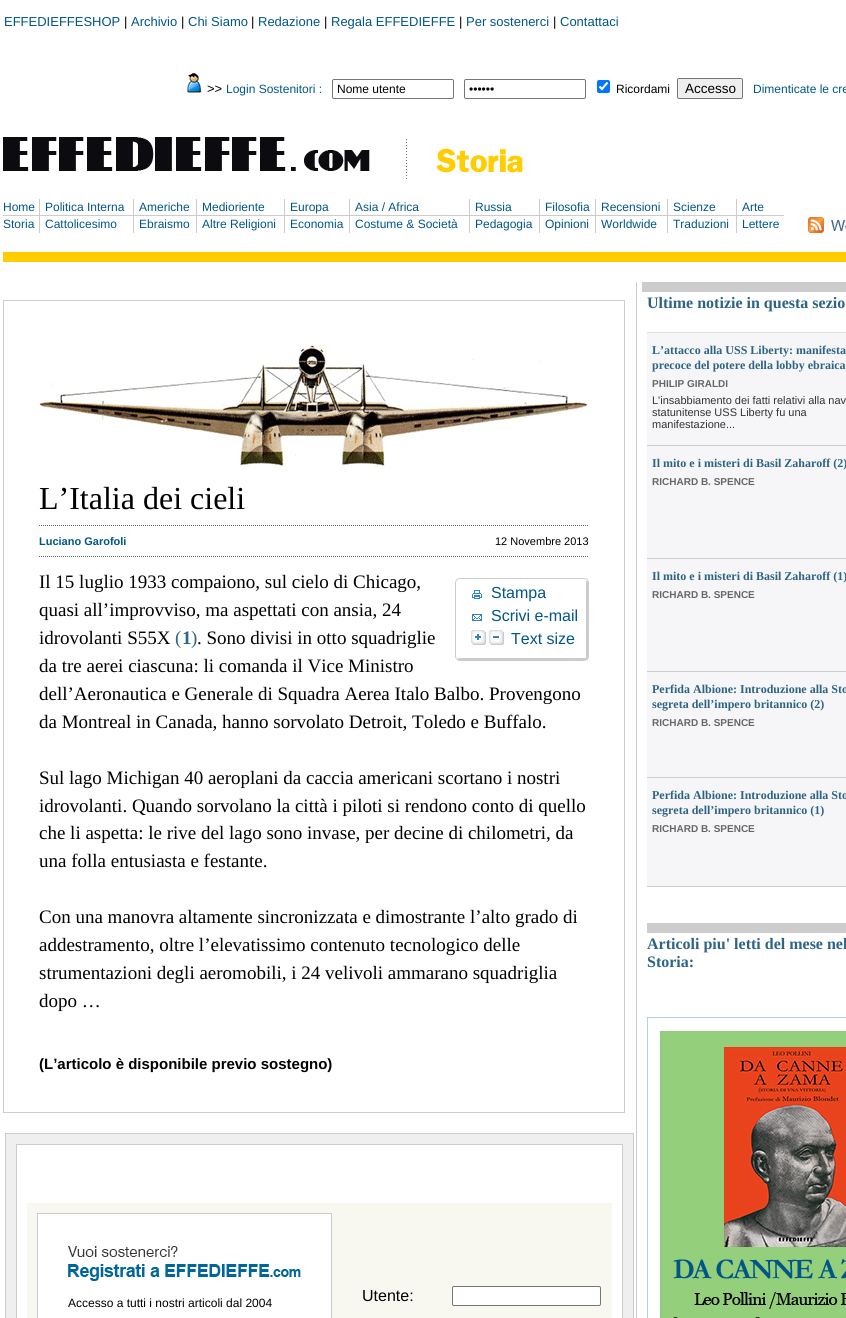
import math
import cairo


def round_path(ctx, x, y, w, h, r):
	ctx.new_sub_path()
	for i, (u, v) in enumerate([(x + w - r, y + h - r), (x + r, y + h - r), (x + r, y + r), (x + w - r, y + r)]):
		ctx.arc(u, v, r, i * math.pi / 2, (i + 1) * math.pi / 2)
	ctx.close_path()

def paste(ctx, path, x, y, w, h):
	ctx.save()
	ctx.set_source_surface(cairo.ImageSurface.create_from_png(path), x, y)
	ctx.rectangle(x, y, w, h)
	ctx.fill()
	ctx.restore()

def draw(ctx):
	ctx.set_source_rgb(1, 1, 1)
	ctx.paint()
	ctx.select_font_face('Liberation Sans')
	ctx.set_font_size(13)
	ctx.set_source_rgb(0, 0.337, 0.537)
	ctx.move_to(4, 26)
	ctx.show_text('EFFEDIEFFESHOP')
	ctx.set_source_rgb(0, 0, 0)
	ctx.move_to(124, 26)
	ctx.show_text('|')
	ctx.set_source_rgb(0, 0.337, 0.537)
	ctx.move_to(131, 26)
	ctx.show_text('Archivio')
	ctx.set_source_rgb(0, 0, 0)
	ctx.move_to(181, 26)
	ctx.show_text('|')
	ctx.set_source_rgb(0, 0.337, 0.537)
	ctx.move_to(188, 26)
	ctx.show_text('Chi Siamo')
	ctx.set_source_rgb(0, 0, 0)
	ctx.move_to(251, 26)
	ctx.show_text('|')
	ctx.set_source_rgb(0, 0.337, 0.537)
	ctx.move_to(258, 26)
	ctx.show_text('Redazione')
	ctx.set_source_rgb(0, 0, 0)
	ctx.move_to(324, 26)
	ctx.show_text('|')
	ctx.set_source_rgb(0, 0.337, 0.537)
	ctx.move_to(331, 26)
	ctx.show_text('Regala EFFEDIEFFE')
	ctx.set_source_rgb(0, 0, 0)
	ctx.move_to(459, 26)
	ctx.show_text('|')
	ctx.set_source_rgb(0, 0.337, 0.537)
	ctx.move_to(466, 26)
	ctx.show_text('Per sostenerci')
	ctx.set_source_rgb(0, 0, 0)
	ctx.move_to(553, 26)
	ctx.show_text('|')
	ctx.set_source_rgb(0, 0.337, 0.537)
	ctx.move_to(560, 26)
	ctx.show_text('Contattaci')
	paste(ctx, 'media/1.png', 187, 73, 16, 20)
	ctx.set_source_rgb(0, 0, 0)
	ctx.move_to(207, 93)
	ctx.show_text('>>')
	ctx.set_font_size(12)
	ctx.set_source_rgb(0, 0.337, 0.537)
	ctx.move_to(226, 93)
	ctx.show_text('Login Sostenitori :')
	round_path(ctx, 332.5, 79.5, 121, 19, 1.5)
	ctx.set_source_rgb(0.463, 0.463, 0.463)
	ctx.set_line_width(1)
	ctx.stroke()
	ctx.set_source_rgb(0, 0, 0)
	ctx.move_to(337, 93)
	ctx.show_text('Nome utente')
	round_path(ctx, 464.5, 79.5, 121, 19, 1.5)
	ctx.set_source_rgb(0.463, 0.463, 0.463)
	ctx.stroke()
	ctx.set_source_rgb(0, 0, 0)
	ctx.move_to(469, 93)
	ctx.show_text('••••••')
	ctx.set_source_rgb(0, 0.459, 1)
	round_path(ctx, 597, 80, 13, 13, 2)
	ctx.fill()
	ctx.new_path()
	ctx.move_to(599.5, 86.5)
	ctx.line_to(602, 89)
	ctx.line_to(607.5, 82.5)
	ctx.set_source_rgb(1, 1, 1)
	ctx.set_line_width(2.1)
	ctx.stroke()
	ctx.set_source_rgb(0, 0, 0)
	ctx.move_to(616, 93)
	ctx.show_text('Ricordami')
	ctx.set_source_rgb(0.937, 0.937, 0.937)
	round_path(ctx, 677.5, 78.5, 65, 20, 1.5)
	ctx.fill_preserve()
	ctx.set_source_rgb(0.463, 0.463, 0.463)
	ctx.set_line_width(1)
	ctx.stroke()
	ctx.set_font_size(13.5)
	ctx.set_source_rgb(0, 0, 0)
	ctx.move_to(685, 93)
	ctx.show_text('Accesso')
	ctx.set_font_size(12)
	ctx.set_source_rgb(0, 0.337, 0.537)
	ctx.move_to(753, 93)
	ctx.show_text('Dimenticate le cre')
	paste(ctx, 'media/2.png', 3, 137, 367, 34)
	paste(ctx, 'media/3.png', 406, 139, 117, 40)
	ctx.set_source_rgb(0.8, 0.8, 0.8)
	ctx.rectangle(736, 215, 1, 18)
	ctx.rectangle(736, 215, 48, 1)
	ctx.rectangle(736, 199, 1, 17)
	ctx.rectangle(667, 215, 1, 18)
	ctx.rectangle(667, 215, 70, 1)
	ctx.rectangle(667, 199, 1, 17)
	ctx.rectangle(595, 215, 1, 18)
	ctx.rectangle(595, 215, 73, 1)
	ctx.rectangle(595, 199, 1, 17)
	ctx.rectangle(539, 215, 1, 18)
	ctx.rectangle(539, 215, 57, 1)
	ctx.rectangle(539, 199, 1, 17)
	ctx.rectangle(469, 215, 1, 18)
	ctx.rectangle(469, 215, 71, 1)
	ctx.rectangle(469, 199, 1, 17)
	ctx.rectangle(349, 215, 1, 18)
	ctx.rectangle(349, 215, 121, 1)
	ctx.rectangle(349, 199, 1, 17)
	ctx.rectangle(284, 215, 1, 18)
	ctx.rectangle(284, 215, 66, 1)
	ctx.rectangle(284, 199, 1, 17)
	ctx.rectangle(196, 215, 1, 18)
	ctx.rectangle(196, 215, 89, 1)
	ctx.rectangle(196, 199, 1, 17)
	ctx.rectangle(133, 215, 1, 18)
	ctx.rectangle(133, 215, 64, 1)
	ctx.rectangle(133, 199, 1, 17)
	ctx.rectangle(39, 215, 1, 18)
	ctx.rectangle(39, 215, 95, 1)
	ctx.rectangle(39, 199, 1, 17)
	ctx.rectangle(3, 215, 37, 1)
	ctx.fill()
	ctx.set_source_rgb(0, 0.337, 0.537)
	for x, y, s in [
		(3, 211, 'Home'),
		(45, 211, 'Politica Interna'),
		(139, 211, 'Americhe'),
		(202, 211, 'Medioriente'),
		(290, 211, 'Europa'),
		(355, 211, 'Asia / Africa'),
		(475, 211, 'Russia'),
		(545, 211, 'Filosofia'),
		(601, 211, 'Recensioni'),
		(673, 211, 'Scienze'),
		(742, 211, 'Arte'),
		(3, 228, 'Storia'),
		(45, 228, 'Cattolicesimo'),
		(139, 228, 'Ebraismo'),
		(202, 228, 'Altre Religioni'),
		(290, 228, 'Economia'),
		(355, 228, 'Costume & Società'),
		(475, 228, 'Pedagogia'),
		(545, 228, 'Opinioni'),
		(601, 228, 'Worldwide'),
		(673, 228, 'Traduzioni'),
		(742, 228, 'Lettere'),
	]:
		ctx.move_to(x, y)
		ctx.show_text(s)
	paste(ctx, 'media/4.png', 808, 217, 38, 16)
	ctx.set_source_rgb(1, 0.8, 0)
	ctx.rectangle(3, 252, 843, 10)
	ctx.fill()
	ctx.rectangle(3.5, 300.5, 621, 812)
	ctx.set_source_rgb(0.8, 0.8, 0.8)
	ctx.stroke()
	paste(ctx, 'media/5.png', 39, 339, 548, 136)
	ctx.select_font_face('Liberation Serif')
	ctx.set_font_size(32)
	ctx.set_source_rgb(0, 0, 0)
	ctx.move_to(39, 509)
	ctx.show_text('L’Italia dei cieli')
	ctx.new_path()
	ctx.move_to(39, 525.5)
	ctx.line_to(589, 525.5)
	ctx.set_source_rgb(0.4, 0.4, 0.4)
	ctx.set_dash([1, 1])
	ctx.stroke()
	ctx.new_path()
	ctx.move_to(39, 556.5)
	ctx.line_to(589, 556.5)
	ctx.stroke()
	ctx.select_font_face('Liberation Sans', cairo.FONT_SLANT_NORMAL, cairo.FONT_WEIGHT_BOLD)
	ctx.set_font_size(11)
	ctx.set_source_rgb(0, 0.337, 0.537)
	ctx.move_to(39, 545)
	ctx.show_text('Luciano Garofoli')
	ctx.select_font_face('Liberation Sans')
	ctx.set_source_rgb(0, 0, 0)
	ctx.move_to(495, 545)
	ctx.show_text('12 Novembre 2013')
	ctx.select_font_face('Liberation Serif')
	ctx.set_font_size(19)
	for x, y, s in [
		(39, 588, 'Il 15 luglio 1933 compaiono, sul cielo di Chicago,'),
		(39, 616, 'quasi all’improvviso, ma aspettati con ansia, 24'),
		(39, 644, 'idrovolanti S55X'),
	]:
		ctx.move_to(x, y)
		ctx.show_text(s)
	ctx.set_source_rgb(0.176, 0.392, 0.541)
	ctx.move_to(175, 644)
	ctx.show_text('(')
	ctx.select_font_face('Liberation Serif', cairo.FONT_SLANT_NORMAL, cairo.FONT_WEIGHT_BOLD)
	ctx.move_to(182, 644)
	ctx.show_text('1')
	ctx.select_font_face('Liberation Serif')
	ctx.move_to(191, 644)
	ctx.show_text(')')
	ctx.set_source_rgb(0, 0, 0)
	for x, y, s in [
		(197, 644, '. Sono divisi in otto squadriglie'),
		(39, 672, 'da tre aerei ciascuna: li comanda il Vice Ministro'),
		(39, 700, 'dell’Aeronautica e Generale di Squadra Aerea Italo Balbo. Provengono'),
		(39, 728, 'da Montreal in Canada, hanno sorvolato Detroit, Toledo e Buffalo.'),
		(39, 784, 'Sul lago Michigan 40 aeroplani da caccia americani scortano i nostri'),
		(39, 812, 'idrovolanti. Quando sorvolano la città i piloti si rendono conto di quello'),
		(39, 839, 'che li aspetta: le rive del lago sono invase, per decine di chilometri, da'),
		(39, 867, 'una folla entusiasta e festante.'),
		(39, 923, 'Con una manovra altamente sincronizzata e dimostrante l’alto grado di'),
		(39, 951, 'addestramento, oltre l’elevatissimo contenuto tecnologico delle'),
		(39, 979, 'strumentazioni degli aeromobili, i 24 velivoli ammarano squadriglia'),
		(39, 1007, 'dopo …'),
	]:
		ctx.move_to(x, y)
		ctx.show_text(s)
	round_path(ctx, 455.5, 578.5, 133, 82, 4.5)
	ctx.set_source_rgb(0.8, 0.8, 0.8)
	ctx.set_dash([])
	ctx.stroke()
	ctx.rectangle(586, 581, 2, 78)
	ctx.fill()
	ctx.rectangle(458, 658, 129, 2)
	ctx.fill()
	paste(ctx, 'media/6.png', 472, 590, 10, 9)
	ctx.select_font_face('Liberation Sans')
	ctx.set_font_size(16)
	ctx.set_source_rgb(0, 0.337, 0.537)
	ctx.move_to(491, 598)
	ctx.show_text('Stampa')
	paste(ctx, 'media/7.png', 472, 614, 10, 7)
	ctx.move_to(491, 621)
	ctx.show_text('Scrivi e-mail')
	paste(ctx, 'media/8.png', 471, 630, 15, 15)
	paste(ctx, 'media/9.png', 489, 630, 15, 15)
	ctx.move_to(511, 644)
	ctx.show_text('Text size')
	ctx.select_font_face('Liberation Sans', cairo.FONT_SLANT_NORMAL, cairo.FONT_WEIGHT_BOLD)
	ctx.set_font_size(15)
	ctx.set_source_rgb(0, 0, 0)
	ctx.move_to(39, 1069)
	ctx.show_text('(L’articolo è disponibile previo sostegno)')
	ctx.set_source_rgb(0.937, 0.937, 0.937)
	ctx.rectangle(5.5, 1133.5, 628, 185)
	ctx.fill_preserve()
	ctx.set_source_rgb(0.8, 0.8, 0.8)
	ctx.stroke()
	ctx.set_source_rgb(1, 1, 1)
	ctx.rectangle(17, 1145, 605, 173)
	ctx.fill()
	ctx.set_source_rgb(0.8, 0.8, 0.8)
	ctx.rectangle(16, 1144, 607, 1)
	ctx.rectangle(622, 1144, 1, 174)
	ctx.rectangle(16, 1144, 1, 174)
	ctx.fill()
	ctx.set_source_rgb(0.969, 0.969, 0.945)
	ctx.rectangle(27, 1203, 585, 115)
	ctx.fill()
	ctx.select_font_face('Liberation Sans')
	ctx.set_font_size(16)
	ctx.set_source_rgb(0, 0, 0)
	ctx.move_to(362, 1301)
	ctx.show_text('Utente:')
	ctx.set_source_rgb(1, 1, 1)
	round_path(ctx, 452.5, 1286.5, 148, 19, 1.5)
	ctx.fill_preserve()
	ctx.set_source_rgb(0.463, 0.463, 0.463)
	ctx.stroke()
	ctx.set_source_rgb(1, 1, 1)
	ctx.rectangle(38, 1214, 293, 104)
	ctx.fill()
	ctx.set_source_rgb(0.8, 0.8, 0.8)
	ctx.rectangle(37, 1213, 295, 1)
	ctx.rectangle(331, 1213, 1, 105)
	ctx.rectangle(37, 1213, 1, 105)
	ctx.fill()
	paste(ctx, 'media/10.png', 68, 1246, 233, 35)
	ctx.set_font_size(12)
	ctx.set_source_rgb(0, 0, 0)
	ctx.move_to(68, 1307)
	ctx.show_text('Accesso a tutti i nostri articoli dal 2004')
	ctx.set_source_rgb(0.8, 0.8, 0.8)
	ctx.rectangle(636, 282, 1, 1036)
	ctx.fill()
	ctx.rectangle(642, 282, 204, 10)
	ctx.fill()
	ctx.select_font_face('Liberation Serif', cairo.FONT_SLANT_NORMAL, cairo.FONT_WEIGHT_BOLD)
	ctx.set_font_size(16)
	ctx.set_source_rgb(0.176, 0.392, 0.518)
	ctx.move_to(647, 308)
	ctx.show_text('Ultime notizie in questa sezio')
	ctx.set_source_rgb(0.961, 0.961, 0.969)
	ctx.rectangle(647, 333, 199, 112)
	ctx.fill()
	ctx.set_source_rgb(0.867, 0.867, 0.867)
	ctx.rectangle(647, 332, 199, 1)
	ctx.fill()
	ctx.set_source_rgb(0.8, 0.8, 0.8)
	ctx.rectangle(647, 445, 199, 1)
	ctx.fill()
	ctx.set_font_size(12)
	ctx.set_source_rgb(0.176, 0.392, 0.518)
	ctx.move_to(652, 354)
	ctx.show_text('L’attacco alla USS Liberty: manifesta')
	ctx.move_to(652, 369)
	ctx.show_text('precoce del potere della lobby ebraica')
	ctx.select_font_face('Liberation Sans', cairo.FONT_SLANT_NORMAL, cairo.FONT_WEIGHT_BOLD)
	ctx.set_font_size(10)
	ctx.set_source_rgb(0.4, 0.4, 0.4)
	ctx.move_to(652, 387)
	ctx.show_text('PHILIP GIRALDI')
	ctx.select_font_face('Liberation Sans')
	ctx.set_font_size(11)
	ctx.set_source_rgb(0.2, 0.2, 0.2)
	for x, y, s in [
		(652, 404, 'L\'insabbiamento dei fatti relativi alla nav'),
		(652, 416, 'statunitense USS Liberty fu una'),
		(652, 428, 'manifestazione...'),
	]:
		ctx.move_to(x, y)
		ctx.show_text(s)
	ctx.set_source_rgb(0.961, 0.961, 0.969)
	ctx.rectangle(647, 446, 199, 112)
	ctx.fill()
	ctx.set_source_rgb(0.8, 0.8, 0.8)
	ctx.rectangle(647, 558, 199, 1)
	ctx.fill()
	ctx.select_font_face('Liberation Serif', cairo.FONT_SLANT_NORMAL, cairo.FONT_WEIGHT_BOLD)
	ctx.set_font_size(12)
	ctx.set_source_rgb(0.176, 0.392, 0.518)
	ctx.move_to(652, 467)
	ctx.show_text('Il mito e i misteri di Basil Zaharoff (2)')
	ctx.select_font_face('Liberation Sans', cairo.FONT_SLANT_NORMAL, cairo.FONT_WEIGHT_BOLD)
	ctx.set_font_size(10)
	ctx.set_source_rgb(0.4, 0.4, 0.4)
	ctx.move_to(652, 485)
	ctx.show_text('RICHARD B. SPENCE')
	ctx.set_source_rgb(0.961, 0.961, 0.969)
	ctx.rectangle(647, 559, 199, 112)
	ctx.fill()
	ctx.set_source_rgb(0.8, 0.8, 0.8)
	ctx.rectangle(647, 671, 199, 1)
	ctx.fill()
	ctx.select_font_face('Liberation Serif', cairo.FONT_SLANT_NORMAL, cairo.FONT_WEIGHT_BOLD)
	ctx.set_font_size(12)
	ctx.set_source_rgb(0.176, 0.392, 0.518)
	ctx.move_to(652, 580)
	ctx.show_text('Il mito e i misteri di Basil Zaharoff (1)')
	ctx.select_font_face('Liberation Sans', cairo.FONT_SLANT_NORMAL, cairo.FONT_WEIGHT_BOLD)
	ctx.set_font_size(10)
	ctx.set_source_rgb(0.4, 0.4, 0.4)
	ctx.move_to(652, 598)
	ctx.show_text('RICHARD B. SPENCE')
	ctx.set_source_rgb(0.961, 0.961, 0.969)
	ctx.rectangle(647, 672, 199, 105)
	ctx.fill()
	ctx.set_source_rgb(0.8, 0.8, 0.8)
	ctx.rectangle(647, 777, 199, 1)
	ctx.fill()
	ctx.select_font_face('Liberation Serif', cairo.FONT_SLANT_NORMAL, cairo.FONT_WEIGHT_BOLD)
	ctx.set_font_size(12)
	ctx.set_source_rgb(0.176, 0.392, 0.518)
	ctx.move_to(652, 693)
	ctx.show_text('Perfida Albione: Introduzione alla Sto')
	ctx.move_to(652, 708)
	ctx.show_text('segreta dell’impero britannico (2)')
	ctx.select_font_face('Liberation Sans', cairo.FONT_SLANT_NORMAL, cairo.FONT_WEIGHT_BOLD)
	ctx.set_font_size(10)
	ctx.set_source_rgb(0.4, 0.4, 0.4)
	ctx.move_to(652, 726)
	ctx.show_text('RICHARD B. SPENCE')
	ctx.set_source_rgb(0.961, 0.961, 0.969)
	ctx.rectangle(647, 778, 199, 108)
	ctx.fill()
	ctx.set_source_rgb(0.8, 0.8, 0.8)
	ctx.rectangle(647, 886, 199, 1)
	ctx.fill()
	ctx.select_font_face('Liberation Serif', cairo.FONT_SLANT_NORMAL, cairo.FONT_WEIGHT_BOLD)
	ctx.set_font_size(12)
	ctx.set_source_rgb(0.176, 0.392, 0.518)
	ctx.move_to(652, 799)
	ctx.show_text('Perfida Albione: Introduzione alla Sto')
	ctx.move_to(652, 814)
	ctx.show_text('segreta dell’impero britannico (1)')
	ctx.select_font_face('Liberation Sans', cairo.FONT_SLANT_NORMAL, cairo.FONT_WEIGHT_BOLD)
	ctx.set_font_size(10)
	ctx.set_source_rgb(0.4, 0.4, 0.4)
	ctx.move_to(652, 832)
	ctx.show_text('RICHARD B. SPENCE')
	ctx.set_source_rgb(0.8, 0.8, 0.8)
	ctx.rectangle(647, 923, 199, 10)
	ctx.fill()
	ctx.select_font_face('Liberation Serif', cairo.FONT_SLANT_NORMAL, cairo.FONT_WEIGHT_BOLD)
	ctx.set_font_size(16)
	ctx.set_source_rgb(0.176, 0.392, 0.518)
	ctx.move_to(647, 949)
	ctx.show_text('Articoli piu\' letti del mese nel')
	ctx.move_to(647, 967)
	ctx.show_text('Storia:')
	paste(ctx, 'media/11.png', 647, 1017, 199, 301)


surface = cairo.ImageSurface(cairo.FORMAT_RGB24, 846, 1318)
ctx = cairo.Context(surface)
options = cairo.FontOptions()
options.set_hint_metrics(cairo.HINT_METRICS_OFF)
options.set_hint_style(cairo.HINT_STYLE_NONE)
ctx.set_font_options(options)
ctx.set_miter_limit(4)
draw(ctx)
surface.write_to_png('image.png')
